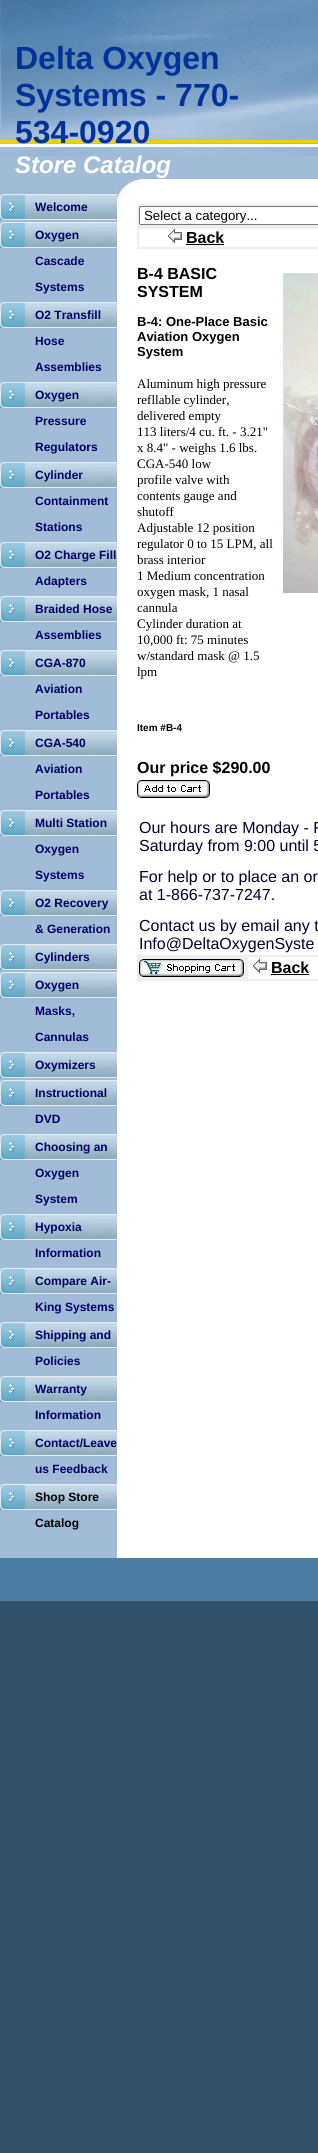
import math
import cairo


def round_path(ctx, x, y, w, h, r):
	ctx.new_sub_path()
	for i, (u, v) in enumerate([(x + w - r, y + h - r), (x + r, y + h - r), (x + r, y + r), (x + w - r, y + r)]):
		ctx.arc(u, v, r, i * math.pi / 2, (i + 1) * math.pi / 2)
	ctx.close_path()

def paste(ctx, path, x, y, w, h):
	ctx.save()
	ctx.set_source_surface(cairo.ImageSurface.create_from_png(path), x, y)
	ctx.rectangle(x, y, w, h)
	ctx.fill()
	ctx.restore()

def draw(ctx):
	ctx.set_source_rgb(0.196, 0.318, 0.412)
	ctx.paint()
	ctx.set_source_rgb(0.635, 0.737, 0.843)
	ctx.rectangle(0, 156, 318, 23)
	ctx.fill()
	paste(ctx, 'media/1.png', 0, 0, 318, 156)
	ctx.select_font_face('Liberation Sans', cairo.FONT_SLANT_NORMAL, cairo.FONT_WEIGHT_BOLD)
	ctx.set_font_size(32)
	ctx.set_source_rgb(0, 0.2, 0.6)
	for x, y, s in [
		(15, 69, 'Delta Oxygen'),
		(15, 106, 'Systems - 770-'),
		(15, 143, '534-0920'),
	]:
		ctx.move_to(x, y)
		ctx.show_text(s)
	ctx.select_font_face('Liberation Sans', cairo.FONT_SLANT_ITALIC, cairo.FONT_WEIGHT_BOLD)
	ctx.set_font_size(24)
	ctx.set_source_rgb(1, 1, 1)
	ctx.move_to(15, 173)
	ctx.show_text('Store Catalog')
	ctx.set_source_rgb(0.635, 0.737, 0.843)
	ctx.rectangle(0, 179, 117, 1379)
	ctx.fill()
	paste(ctx, 'media/2.png', 0, 194, 117, 26)
	ctx.select_font_face('Liberation Sans', cairo.FONT_SLANT_NORMAL, cairo.FONT_WEIGHT_BOLD)
	ctx.set_font_size(12)
	ctx.set_source_rgb(0, 0, 0.4)
	ctx.move_to(35, 211)
	ctx.show_text('Welcome')
	paste(ctx, 'media/2.png', 0, 222, 117, 26)
	for x, y, s in [
		(35, 239, 'Oxygen'),
		(35, 265, 'Cascade'),
		(35, 291, 'Systems'),
	]:
		ctx.move_to(x, y)
		ctx.show_text(s)
	paste(ctx, 'media/2.png', 0, 302, 117, 26)
	for x, y, s in [
		(35, 319, 'O2 Transfill'),
		(35, 345, 'Hose'),
		(35, 371, 'Assemblies'),
	]:
		ctx.move_to(x, y)
		ctx.show_text(s)
	paste(ctx, 'media/2.png', 0, 382, 117, 26)
	for x, y, s in [
		(35, 399, 'Oxygen'),
		(35, 425, 'Pressure'),
		(35, 451, 'Regulators'),
	]:
		ctx.move_to(x, y)
		ctx.show_text(s)
	paste(ctx, 'media/2.png', 0, 462, 117, 26)
	for x, y, s in [
		(35, 479, 'Cylinder'),
		(35, 505, 'Containment'),
		(35, 531, 'Stations'),
	]:
		ctx.move_to(x, y)
		ctx.show_text(s)
	paste(ctx, 'media/2.png', 0, 542, 117, 26)
	ctx.move_to(35, 559)
	ctx.show_text('O2 Charge Fill')
	ctx.move_to(35, 585)
	ctx.show_text('Adapters')
	paste(ctx, 'media/2.png', 0, 596, 117, 26)
	ctx.move_to(35, 613)
	ctx.show_text('Braided Hose')
	ctx.move_to(35, 639)
	ctx.show_text('Assemblies')
	paste(ctx, 'media/2.png', 0, 650, 117, 26)
	for x, y, s in [
		(35, 667, 'CGA-870'),
		(35, 693, 'Aviation'),
		(35, 719, 'Portables'),
	]:
		ctx.move_to(x, y)
		ctx.show_text(s)
	paste(ctx, 'media/2.png', 0, 730, 117, 26)
	for x, y, s in [
		(35, 747, 'CGA-540'),
		(35, 773, 'Aviation'),
		(35, 799, 'Portables'),
	]:
		ctx.move_to(x, y)
		ctx.show_text(s)
	paste(ctx, 'media/2.png', 0, 810, 117, 26)
	for x, y, s in [
		(35, 827, 'Multi Station'),
		(35, 853, 'Oxygen'),
		(35, 879, 'Systems'),
	]:
		ctx.move_to(x, y)
		ctx.show_text(s)
	paste(ctx, 'media/2.png', 0, 890, 117, 26)
	ctx.move_to(35, 907)
	ctx.show_text('O2 Recovery')
	ctx.move_to(35, 933)
	ctx.show_text('& Generation')
	paste(ctx, 'media/2.png', 0, 944, 117, 26)
	ctx.move_to(35, 961)
	ctx.show_text('Cylinders')
	paste(ctx, 'media/2.png', 0, 972, 117, 26)
	for x, y, s in [
		(35, 989, 'Oxygen'),
		(35, 1015, 'Masks,'),
		(35, 1041, 'Cannulas'),
	]:
		ctx.move_to(x, y)
		ctx.show_text(s)
	paste(ctx, 'media/2.png', 0, 1052, 117, 26)
	ctx.move_to(35, 1069)
	ctx.show_text('Oxymizers')
	paste(ctx, 'media/2.png', 0, 1080, 117, 26)
	ctx.move_to(35, 1097)
	ctx.show_text('Instructional')
	ctx.move_to(35, 1123)
	ctx.show_text('DVD')
	paste(ctx, 'media/2.png', 0, 1134, 117, 26)
	for x, y, s in [
		(35, 1151, 'Choosing an'),
		(35, 1177, 'Oxygen'),
		(35, 1203, 'System'),
	]:
		ctx.move_to(x, y)
		ctx.show_text(s)
	paste(ctx, 'media/2.png', 0, 1214, 117, 26)
	ctx.move_to(35, 1231)
	ctx.show_text('Hypoxia')
	ctx.move_to(35, 1257)
	ctx.show_text('Information')
	paste(ctx, 'media/2.png', 0, 1268, 117, 26)
	ctx.move_to(35, 1285)
	ctx.show_text('Compare Air-')
	ctx.move_to(35, 1311)
	ctx.show_text('King Systems')
	paste(ctx, 'media/2.png', 0, 1322, 117, 26)
	ctx.move_to(35, 1339)
	ctx.show_text('Shipping and')
	ctx.move_to(35, 1365)
	ctx.show_text('Policies')
	paste(ctx, 'media/2.png', 0, 1376, 117, 26)
	ctx.move_to(35, 1393)
	ctx.show_text('Warranty')
	ctx.move_to(35, 1419)
	ctx.show_text('Information')
	paste(ctx, 'media/2.png', 0, 1430, 117, 26)
	ctx.move_to(35, 1447)
	ctx.show_text('Contact/Leave')
	ctx.move_to(35, 1473)
	ctx.show_text('us Feedback')
	paste(ctx, 'media/2.png', 0, 1484, 117, 26)
	ctx.set_source_rgb(0, 0, 0)
	ctx.move_to(35, 1501)
	ctx.show_text('Shop Store')
	ctx.move_to(35, 1527)
	ctx.show_text('Catalog')
	ctx.set_source_rgb(1, 1, 1)
	ctx.rectangle(117, 179, 201, 1379)
	ctx.fill()
	paste(ctx, 'media/3.png', 117, 179, 24, 20)
	ctx.set_source_rgb(0.933, 0.933, 0.933)
	ctx.rectangle(137, 204, 181, 45)
	ctx.fill()
	ctx.set_source_rgb(1, 1, 1)
	round_path(ctx, 139.5, 206.5, 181, 18, 1.5)
	ctx.fill_preserve()
	ctx.set_source_rgb(0.463, 0.463, 0.463)
	ctx.set_line_width(1)
	ctx.stroke()
	ctx.select_font_face('Liberation Sans')
	ctx.set_font_size(13.25)
	ctx.set_source_rgb(0, 0, 0)
	ctx.move_to(144, 220)
	ctx.show_text('Select a category...')
	ctx.set_source_rgb(1, 1, 1)
	ctx.rectangle(139, 229, 179, 18)
	ctx.fill()
	paste(ctx, 'media/4.png', 168, 229, 14, 14)
	ctx.select_font_face('Liberation Sans', cairo.FONT_SLANT_NORMAL, cairo.FONT_WEIGHT_BOLD)
	ctx.set_font_size(16)
	ctx.set_source_rgb(0, 0, 0)
	ctx.move_to(186, 243)
	ctx.show_text('Back')
	ctx.rectangle(186, 244, 38, 1)
	ctx.fill()
	ctx.move_to(137, 279)
	ctx.show_text('B-4 BASIC')
	ctx.move_to(137, 297)
	ctx.show_text('SYSTEM')
	ctx.set_font_size(13)
	for x, y, s in [
		(137, 326, 'B-4: One-Place Basic'),
		(137, 341, 'Aviation Oxygen'),
		(137, 356, 'System'),
	]:
		ctx.move_to(x, y)
		ctx.show_text(s)
	ctx.select_font_face('Liberation Serif')
	for x, y, s in [
		(137, 388, 'Aluminum high pressure'),
		(137, 404, 'refllable cylinder,'),
		(137, 420, 'delivered empty'),
		(137, 436, '113 liters/4 cu. ft. - 3.21"'),
		(137, 452, 'x 8.4" - weighs 1.6 lbs.'),
		(137, 468, 'CGA-540 low'),
		(137, 484, 'profile valve with'),
		(137, 500, 'contents gauge and'),
		(137, 516, 'shutoff'),
		(137, 532, 'Adjustable 12 position'),
		(137, 548, 'regulator 0 to 15 LPM, all'),
		(137, 564, 'brass interior'),
		(137, 580, '1 Medium concentration'),
		(137, 596, 'oxygen mask, 1 nasal'),
		(137, 612, 'cannula'),
		(137, 628, 'Cylinder duration at'),
		(137, 644, '10,000 ft: 75 minutes'),
		(137, 660, 'w/standard mask @ 1.5'),
		(137, 676, 'lpm'),
	]:
		ctx.move_to(x, y)
		ctx.show_text(s)
	ctx.select_font_face('Liberation Sans', cairo.FONT_SLANT_NORMAL, cairo.FONT_WEIGHT_BOLD)
	ctx.set_font_size(10)
	ctx.move_to(137, 731)
	ctx.show_text('Item #B-4')
	ctx.set_font_size(16)
	ctx.move_to(137, 773)
	ctx.show_text('Our price $290.00')
	paste(ctx, 'media/5.png', 137, 780, 73, 18)
	paste(ctx, 'media/6.png', 283, 273, 35, 320)
	ctx.select_font_face('Liberation Sans')
	ctx.set_source_rgb(0, 0, 0.2)
	for x, y, s in [
		(139, 833, 'Our hours are Monday - F'),
		(139, 851, 'Saturday from 9:00 until 5'),
		(139, 882, 'For help or to place an or'),
		(139, 900, 'at 1-866-737-7247.'),
		(139, 931, 'Contact us by email any t'),
		(139, 949, 'Info@DeltaOxygenSyste'),
	]:
		ctx.move_to(x, y)
		ctx.show_text(s)
	ctx.set_source_rgb(0.933, 0.933, 0.933)
	ctx.rectangle(137, 955, 181, 26)
	ctx.fill()
	paste(ctx, 'media/7.png', 139, 959, 105, 18)
	ctx.set_source_rgb(1, 1, 1)
	ctx.rectangle(248, 957, 70, 22)
	ctx.fill()
	paste(ctx, 'media/4.png', 253, 959, 14, 14)
	ctx.select_font_face('Liberation Sans', cairo.FONT_SLANT_NORMAL, cairo.FONT_WEIGHT_BOLD)
	ctx.set_source_rgb(0, 0, 0)
	ctx.move_to(271, 973)
	ctx.show_text('Back')
	ctx.rectangle(271, 974, 38, 1)
	ctx.fill()
	ctx.set_source_rgb(0.302, 0.49, 0.647)
	ctx.rectangle(0, 1558, 318, 43)
	ctx.fill()


surface = cairo.ImageSurface(cairo.FORMAT_RGB24, 318, 2153)
ctx = cairo.Context(surface)
options = cairo.FontOptions()
options.set_hint_metrics(cairo.HINT_METRICS_OFF)
options.set_hint_style(cairo.HINT_STYLE_NONE)
ctx.set_font_options(options)
ctx.set_miter_limit(4)
draw(ctx)
surface.write_to_png('image.png')
